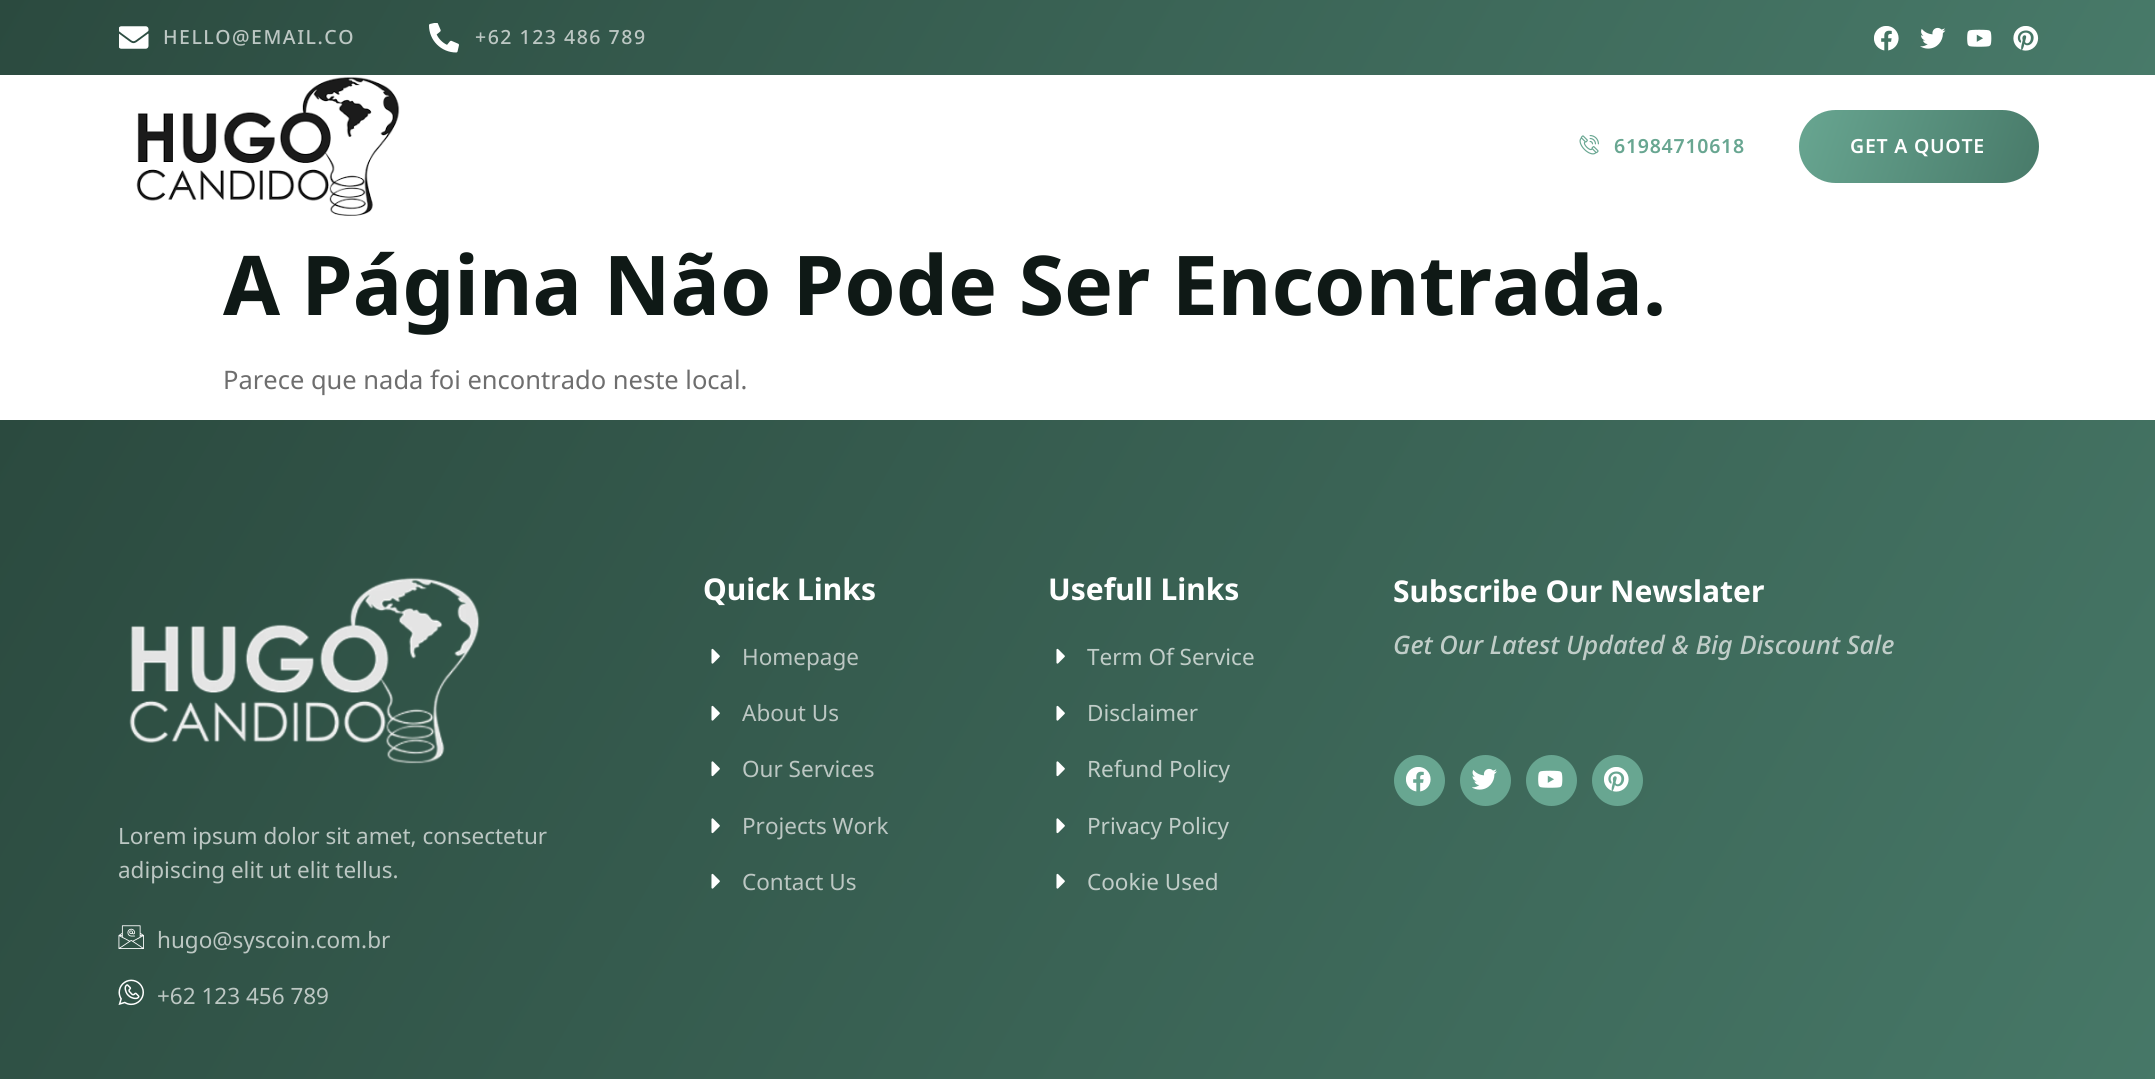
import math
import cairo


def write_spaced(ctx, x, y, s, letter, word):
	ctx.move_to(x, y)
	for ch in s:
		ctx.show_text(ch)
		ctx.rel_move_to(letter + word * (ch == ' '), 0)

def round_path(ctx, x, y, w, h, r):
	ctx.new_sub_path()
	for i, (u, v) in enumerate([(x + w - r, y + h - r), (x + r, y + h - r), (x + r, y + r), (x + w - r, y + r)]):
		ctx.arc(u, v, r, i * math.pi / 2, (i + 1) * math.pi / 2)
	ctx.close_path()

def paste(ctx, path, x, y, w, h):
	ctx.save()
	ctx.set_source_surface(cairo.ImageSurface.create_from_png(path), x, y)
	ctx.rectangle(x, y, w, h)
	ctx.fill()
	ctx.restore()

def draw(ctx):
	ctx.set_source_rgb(1, 1, 1)
	ctx.paint()
	gradient = cairo.LinearGradient(253, -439, 1902, 514)
	gradient.add_color_stop_rgba(0, 0.169, 0.29, 0.247, 1)
	gradient.add_color_stop_rgba(1, 0.282, 0.478, 0.412, 1)
	ctx.set_source(gradient)
	ctx.rectangle(0, 0, 2155, 75)
	ctx.fill()
	paste(ctx, 'media/1.png', 119, 26, 30, 23)
	ctx.select_font_face('Noto Sans Medium')
	ctx.set_font_size(19.5)
	ctx.set_source_rgb(0.737, 0.78, 0.765)
	write_spaced(ctx, 163, 44, 'HELLO@EMAIL.CO', 1.5, 0)
	paste(ctx, 'media/2.png', 429, 23, 30, 30)
	write_spaced(ctx, 475, 44, '+62 123 486 789', 1.5, 0)
	paste(ctx, 'media/3.png', 1874, 26, 25, 25)
	paste(ctx, 'media/4.png', 1920, 27, 26, 22)
	paste(ctx, 'media/5.png', 1967, 29, 25, 18)
	paste(ctx, 'media/6.png', 2013, 26, 26, 25)
	paste(ctx, 'media/7.png', 136, 76, 264, 140)
	paste(ctx, 'media/8.png', 1579, 135, 20, 20)
	ctx.select_font_face('Noto Sans SemiBold')
	ctx.set_source_rgb(0.408, 0.651, 0.569)
	write_spaced(ctx, 1614, 153, '61984710618', 0.75, 0)
	gradient = cairo.LinearGradient(1799, 107, 2038, 185)
	gradient.add_color_stop_rgba(0, 0.408, 0.651, 0.569, 1)
	gradient.add_color_stop_rgba(1, 0.282, 0.478, 0.412, 1)
	ctx.set_source(gradient)
	round_path(ctx, 1799, 110, 240, 73, 36.5)
	ctx.fill()
	ctx.set_source_rgb(1, 1, 1)
	write_spaced(ctx, 1850, 153, 'GET A QUOTE', 0.75, 0)
	ctx.select_font_face('Noto Sans', cairo.FONT_SLANT_NORMAL, cairo.FONT_WEIGHT_BOLD)
	ctx.set_font_size(82.5)
	ctx.set_source_rgb(0.059, 0.098, 0.086)
	ctx.move_to(223, 315)
	ctx.show_text('A Página Não Pode Ser Encontrada.')
	ctx.select_font_face('Noto Sans')
	ctx.set_font_size(25.5)
	ctx.set_source_rgb(0.431, 0.431, 0.431)
	ctx.move_to(223, 389)
	ctx.show_text('Parece que nada foi encontrado neste local.')
	gradient = cairo.LinearGradient(81, 280, 2075, 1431)
	gradient.add_color_stop_rgba(0, 0.169, 0.29, 0.247, 1)
	gradient.add_color_stop_rgba(1, 0.282, 0.478, 0.412, 1)
	ctx.set_source(gradient)
	ctx.rectangle(0, 420, 2155, 659)
	ctx.fill()
	ctx.select_font_face('Noto Sans', cairo.FONT_SLANT_NORMAL, cairo.FONT_WEIGHT_BOLD)
	ctx.set_font_size(30)
	ctx.set_source_rgb(1, 1, 1)
	ctx.move_to(703, 600)
	ctx.show_text('Quick Links')
	paste(ctx, 'media/9.png', 711, 648, 9, 16)
	ctx.select_font_face('Noto Sans')
	ctx.set_font_size(22.5)
	ctx.set_source_rgb(0.737, 0.78, 0.765)
	ctx.move_to(742, 665)
	ctx.show_text('Homepage')
	paste(ctx, 'media/10.png', 711, 705, 9, 16)
	ctx.move_to(742, 721)
	ctx.show_text('About Us')
	paste(ctx, 'media/11.png', 711, 761, 9, 16)
	ctx.move_to(742, 777)
	ctx.show_text('Our Services')
	paste(ctx, 'media/12.png', 711, 818, 9, 16)
	ctx.move_to(742, 834)
	ctx.show_text('Projects Work')
	paste(ctx, 'media/13.png', 711, 873, 9, 16)
	ctx.move_to(742, 890)
	ctx.show_text('Contact Us')
	ctx.select_font_face('Noto Sans', cairo.FONT_SLANT_NORMAL, cairo.FONT_WEIGHT_BOLD)
	ctx.set_font_size(30)
	ctx.set_source_rgb(1, 1, 1)
	ctx.move_to(1048, 600)
	ctx.show_text('Usefull Links')
	paste(ctx, 'media/14.png', 1056, 648, 9, 16)
	ctx.select_font_face('Noto Sans')
	ctx.set_font_size(22.5)
	ctx.set_source_rgb(0.753, 0.804, 0.784)
	ctx.move_to(1087, 665)
	ctx.show_text('Term Of Service')
	paste(ctx, 'media/15.png', 1056, 705, 9, 16)
	ctx.move_to(1087, 721)
	ctx.show_text('Disclaimer')
	paste(ctx, 'media/16.png', 1056, 761, 9, 16)
	ctx.move_to(1087, 777)
	ctx.show_text('Refund Policy')
	paste(ctx, 'media/17.png', 1056, 818, 9, 16)
	ctx.move_to(1087, 834)
	ctx.show_text('Privacy Policy')
	paste(ctx, 'media/18.png', 1056, 873, 9, 16)
	ctx.move_to(1087, 890)
	ctx.show_text('Cookie Used')
	ctx.select_font_face('Noto Sans', cairo.FONT_SLANT_NORMAL, cairo.FONT_WEIGHT_BOLD)
	ctx.set_font_size(30)
	ctx.set_source_rgb(1, 1, 1)
	ctx.move_to(1393, 602)
	ctx.show_text('Subscribe Our Newslater')
	ctx.select_font_face('Noto Sans Medium', cairo.FONT_SLANT_ITALIC)
	ctx.set_font_size(25.5)
	ctx.set_source_rgb(0.753, 0.804, 0.784)
	ctx.move_to(1393, 654)
	ctx.show_text('Get Our Latest Updated & Big Discount Sale')
	ctx.set_source_rgb(0.408, 0.651, 0.569)
	ctx.new_path()
	ctx.arc(1419.5, 780.5, 25.5, 0, 2 * math.pi)
	ctx.fill()
	paste(ctx, 'media/19.png', 1406, 767, 25, 25)
	ctx.arc(1485.5, 780.5, 25.5, 0, 2 * math.pi)
	ctx.fill()
	paste(ctx, 'media/20.png', 1472, 768, 25, 22)
	ctx.arc(1551.5, 780.5, 25.5, 0, 2 * math.pi)
	ctx.fill()
	paste(ctx, 'media/21.png', 1538, 770, 25, 18)
	ctx.arc(1617.5, 780.5, 25.5, 0, 2 * math.pi)
	ctx.fill()
	paste(ctx, 'media/22.png', 1604, 767, 25, 25)
	paste(ctx, 'media/23.png', 129, 577, 351, 187)
	ctx.select_font_face('Noto Sans')
	ctx.set_font_size(22.5)
	ctx.set_source_rgb(0.737, 0.78, 0.765)
	ctx.move_to(118, 844)
	ctx.show_text('Lorem ipsum dolor sit amet, consectetur')
	ctx.move_to(118, 878)
	ctx.show_text('adipiscing elit ut elit tellus.')
	paste(ctx, 'media/24.png', 118, 925, 26, 24)
	ctx.move_to(157, 948)
	ctx.show_text('hugo@syscoin.com.br')
	paste(ctx, 'media/25.png', 118, 979, 26, 27)
	ctx.move_to(157, 1004)
	ctx.show_text('+62 123 456 789')


surface = cairo.ImageSurface(cairo.FORMAT_RGB24, 2155, 1079)
ctx = cairo.Context(surface)
options = cairo.FontOptions()
options.set_hint_metrics(cairo.HINT_METRICS_OFF)
options.set_hint_style(cairo.HINT_STYLE_NONE)
ctx.set_font_options(options)
ctx.set_miter_limit(4)
draw(ctx)
surface.write_to_png('image.png')
